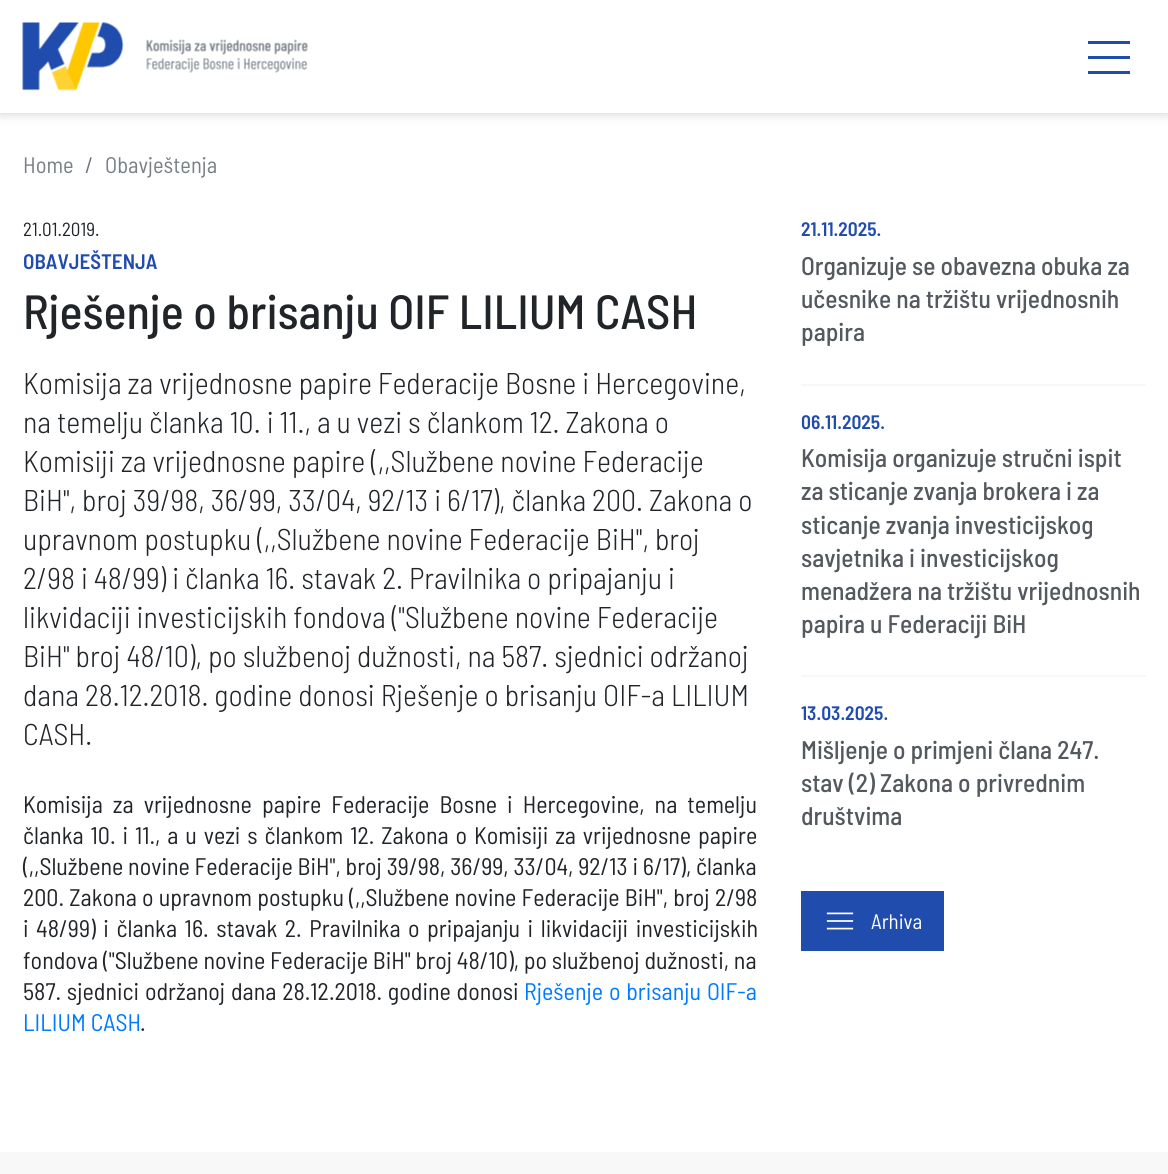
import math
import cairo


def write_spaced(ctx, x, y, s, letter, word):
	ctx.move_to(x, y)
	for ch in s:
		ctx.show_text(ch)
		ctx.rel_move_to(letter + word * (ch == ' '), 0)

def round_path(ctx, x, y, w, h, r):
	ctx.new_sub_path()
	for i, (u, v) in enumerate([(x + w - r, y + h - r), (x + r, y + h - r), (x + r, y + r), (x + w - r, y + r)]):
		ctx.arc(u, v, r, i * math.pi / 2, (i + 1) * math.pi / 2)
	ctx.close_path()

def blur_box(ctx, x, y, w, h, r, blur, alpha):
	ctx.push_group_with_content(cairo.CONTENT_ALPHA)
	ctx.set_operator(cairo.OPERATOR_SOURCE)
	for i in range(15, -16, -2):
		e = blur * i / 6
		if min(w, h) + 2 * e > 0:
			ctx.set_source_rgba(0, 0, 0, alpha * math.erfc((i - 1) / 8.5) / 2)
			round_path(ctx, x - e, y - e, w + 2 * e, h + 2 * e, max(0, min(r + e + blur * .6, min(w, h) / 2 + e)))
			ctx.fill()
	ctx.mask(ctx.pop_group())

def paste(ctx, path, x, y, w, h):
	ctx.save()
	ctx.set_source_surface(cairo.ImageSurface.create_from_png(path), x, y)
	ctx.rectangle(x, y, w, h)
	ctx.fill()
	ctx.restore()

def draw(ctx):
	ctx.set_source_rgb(1, 1, 1)
	ctx.paint()
	ctx.set_source_rgb(0, 0, 0)
	blur_box(ctx, 0, 0, 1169, 113, 0, 6, 0.2)
	ctx.set_source_rgb(1, 1, 1)
	ctx.rectangle(0, 0, 1168, 113)
	ctx.fill()
	paste(ctx, 'media/1.png', 22, 22, 286, 69)
	ctx.set_source_rgb(0.125, 0.298, 0.678)
	ctx.rectangle(1088, 56, 42, 3)
	ctx.rectangle(1088, 41, 42, 3)
	ctx.rectangle(1088, 71, 42, 3)
	ctx.fill()
	ctx.select_font_face('Barlow Semi Condensed')
	ctx.set_font_size(22.5)
	ctx.set_source_rgb(0.471, 0.498, 0.533)
	ctx.move_to(23, 173)
	ctx.show_text('Home')
	ctx.set_source_rgb(0.424, 0.459, 0.49)
	ctx.move_to(85, 173)
	ctx.show_text('/')
	ctx.set_source_rgb(0.471, 0.498, 0.533)
	ctx.move_to(105, 173)
	ctx.show_text('Obavještenja')
	ctx.set_font_size(19)
	ctx.set_source_rgb(0.129, 0.145, 0.161)
	ctx.move_to(23, 236)
	ctx.show_text('21.01.2019.')
	ctx.select_font_face('Barlow Semi Condensed SemiBold')
	ctx.set_font_size(21)
	ctx.set_source_rgb(0.125, 0.298, 0.678)
	ctx.move_to(23, 269)
	ctx.show_text('OBAVJEŠTENJA')
	ctx.select_font_face('Barlow Semi Condensed Medium')
	ctx.set_font_size(48)
	ctx.set_source_rgb(0.129, 0.145, 0.161)
	ctx.move_to(23, 329)
	ctx.show_text('Rješenje o brisanju OIF LILIUM CASH')
	ctx.select_font_face('Barlow Semi Condensed Light')
	ctx.set_font_size(30)
	for x, y, s in [
		(23, 394, 'Komisija za vrijednosne papire Federacije Bosne i Hercegovine,'),
		(23, 433, 'na temelju članka 10. i 11., a u vezi s člankom 12. Zakona o'),
		(23, 472, 'Komisiji za vrijednosne papire (,,Službene novine Federacije'),
		(23, 511, 'BiH", broj 39/98, 36/99, 33/04, 92/13 i 6/17), članka 200. Zakona o'),
		(23, 550, 'upravnom postupku (,,Službene novine Federacije BiH", broj'),
		(23, 589, '2/98 i 48/99) i članka 16. stavak 2. Pravilnika o pripajanju i'),
		(23, 628, 'likvidaciji investicijskih fondova ("Službene novine Federacije'),
		(23, 667, 'BiH" broj 48/10), po službenoj dužnosti, na 587. sjednici održanoj'),
		(23, 706, 'dana 28.12.2018. godine donosi Rješenje o brisanju OIF-a LILIUM'),
		(23, 745, 'CASH.'),
	]:
		ctx.move_to(x, y)
		ctx.show_text(s)
	ctx.select_font_face('Barlow Semi Condensed')
	ctx.set_font_size(24)
	write_spaced(ctx, 23, 813, 'Komisija za vrijednosne papire Federacije Bosne i Hercegovine, na temelju', 0, 5.25)
	write_spaced(ctx, 23, 844, 'članka 10. i 11., a u vezi s člankom 12. Zakona o Komisiji za vrijednosne papire', 0, 2.1)
	ctx.move_to(23, 875)
	ctx.show_text('(,,Službene novine Federacije BiH", broj 39/98, 36/99, 33/04, 92/13 i 6/17), članka')
	write_spaced(ctx, 23, 906, '200. Zakona o upravnom postupku (,,Službene novine Federacije BiH", broj 2/98', 0, 0.4)
	write_spaced(ctx, 23, 937, 'i 48/99) i članka 16. stavak 2. Pravilnika o pripajanju i likvidaciji investicijskih', 0, 2.75)
	ctx.move_to(23, 969)
	ctx.show_text('fondova ("Službene novine Federacije BiH" broj 48/10), po službenoj dužnosti, na')
	write_spaced(ctx, 23, 1000, '587. sjednici održanoj dana 28.12.2018. godine donosi', 0, 1)
	ctx.set_source_rgb(0, 0.482, 1)
	write_spaced(ctx, 524, 1000, 'Rješenje o brisanju OIF-a', 0, 1)
	ctx.move_to(23, 1031)
	ctx.show_text('LILIUM CASH')
	ctx.set_source_rgb(0.129, 0.145, 0.161)
	ctx.move_to(140, 1031)
	ctx.show_text('.')
	ctx.set_source_rgb(0.969, 0.969, 0.969)
	ctx.rectangle(801, 384, 345, 2)
	ctx.fill()
	ctx.select_font_face('Barlow Semi Condensed SemiBold')
	ctx.set_font_size(19.5)
	ctx.set_source_rgb(0.125, 0.298, 0.678)
	ctx.move_to(801, 236)
	ctx.show_text('21.11.2025.')
	ctx.select_font_face('Barlow Semi Condensed Medium')
	ctx.set_font_size(25.5)
	ctx.set_source_rgb(0.329, 0.349, 0.373)
	for x, y, s in [
		(801, 275, 'Organizuje se obavezna obuka za'),
		(801, 308, 'učesnike na tržištu vrijednosnih'),
		(801, 341, 'papira'),
	]:
		ctx.move_to(x, y)
		ctx.show_text(s)
	ctx.set_source_rgb(0.969, 0.969, 0.969)
	ctx.rectangle(801, 675, 345, 2)
	ctx.fill()
	ctx.select_font_face('Barlow Semi Condensed SemiBold')
	ctx.set_font_size(19.5)
	ctx.set_source_rgb(0.125, 0.298, 0.678)
	ctx.move_to(801, 429)
	ctx.show_text('06.11.2025.')
	ctx.select_font_face('Barlow Semi Condensed Medium')
	ctx.set_font_size(25.5)
	ctx.set_source_rgb(0.329, 0.349, 0.373)
	for x, y, s in [
		(801, 467, 'Komisija organizuje stručni ispit'),
		(801, 500, 'za sticanje zvanja brokera i za'),
		(801, 534, 'sticanje zvanja investicijskog'),
		(801, 567, 'savjetnika i investicijskog'),
		(801, 600, 'menadžera na tržištu vrijednosnih'),
		(801, 633, 'papira u Federaciji BiH'),
	]:
		ctx.move_to(x, y)
		ctx.show_text(s)
	ctx.select_font_face('Barlow Semi Condensed SemiBold')
	ctx.set_font_size(19.5)
	ctx.set_source_rgb(0.125, 0.298, 0.678)
	ctx.move_to(801, 720)
	ctx.show_text('13.03.2025.')
	ctx.select_font_face('Barlow Semi Condensed Medium')
	ctx.set_font_size(25.5)
	ctx.set_source_rgb(0.329, 0.349, 0.373)
	for x, y, s in [
		(801, 759, 'Mišljenje o primjeni člana 247.'),
		(801, 792, 'stav (2) Zakona o privrednim'),
		(801, 825, 'društvima'),
	]:
		ctx.move_to(x, y)
		ctx.show_text(s)
	ctx.set_source_rgb(0.125, 0.298, 0.678)
	ctx.rectangle(801, 891, 143, 60)
	ctx.fill()
	paste(ctx, 'media/2.png', 826, 912, 28, 18)
	ctx.select_font_face('Barlow Semi Condensed')
	ctx.set_font_size(21)
	ctx.set_source_rgb(1, 1, 1)
	ctx.move_to(871, 929)
	ctx.show_text('Arhiva')
	ctx.set_source_rgb(0.969, 0.969, 0.969)
	ctx.rectangle(0, 1152, 1168, 22)
	ctx.fill()


surface = cairo.ImageSurface(cairo.FORMAT_RGB24, 1168, 1174)
ctx = cairo.Context(surface)
options = cairo.FontOptions()
options.set_hint_metrics(cairo.HINT_METRICS_OFF)
options.set_hint_style(cairo.HINT_STYLE_NONE)
ctx.set_font_options(options)
ctx.set_miter_limit(4)
draw(ctx)
surface.write_to_png('image.png')
